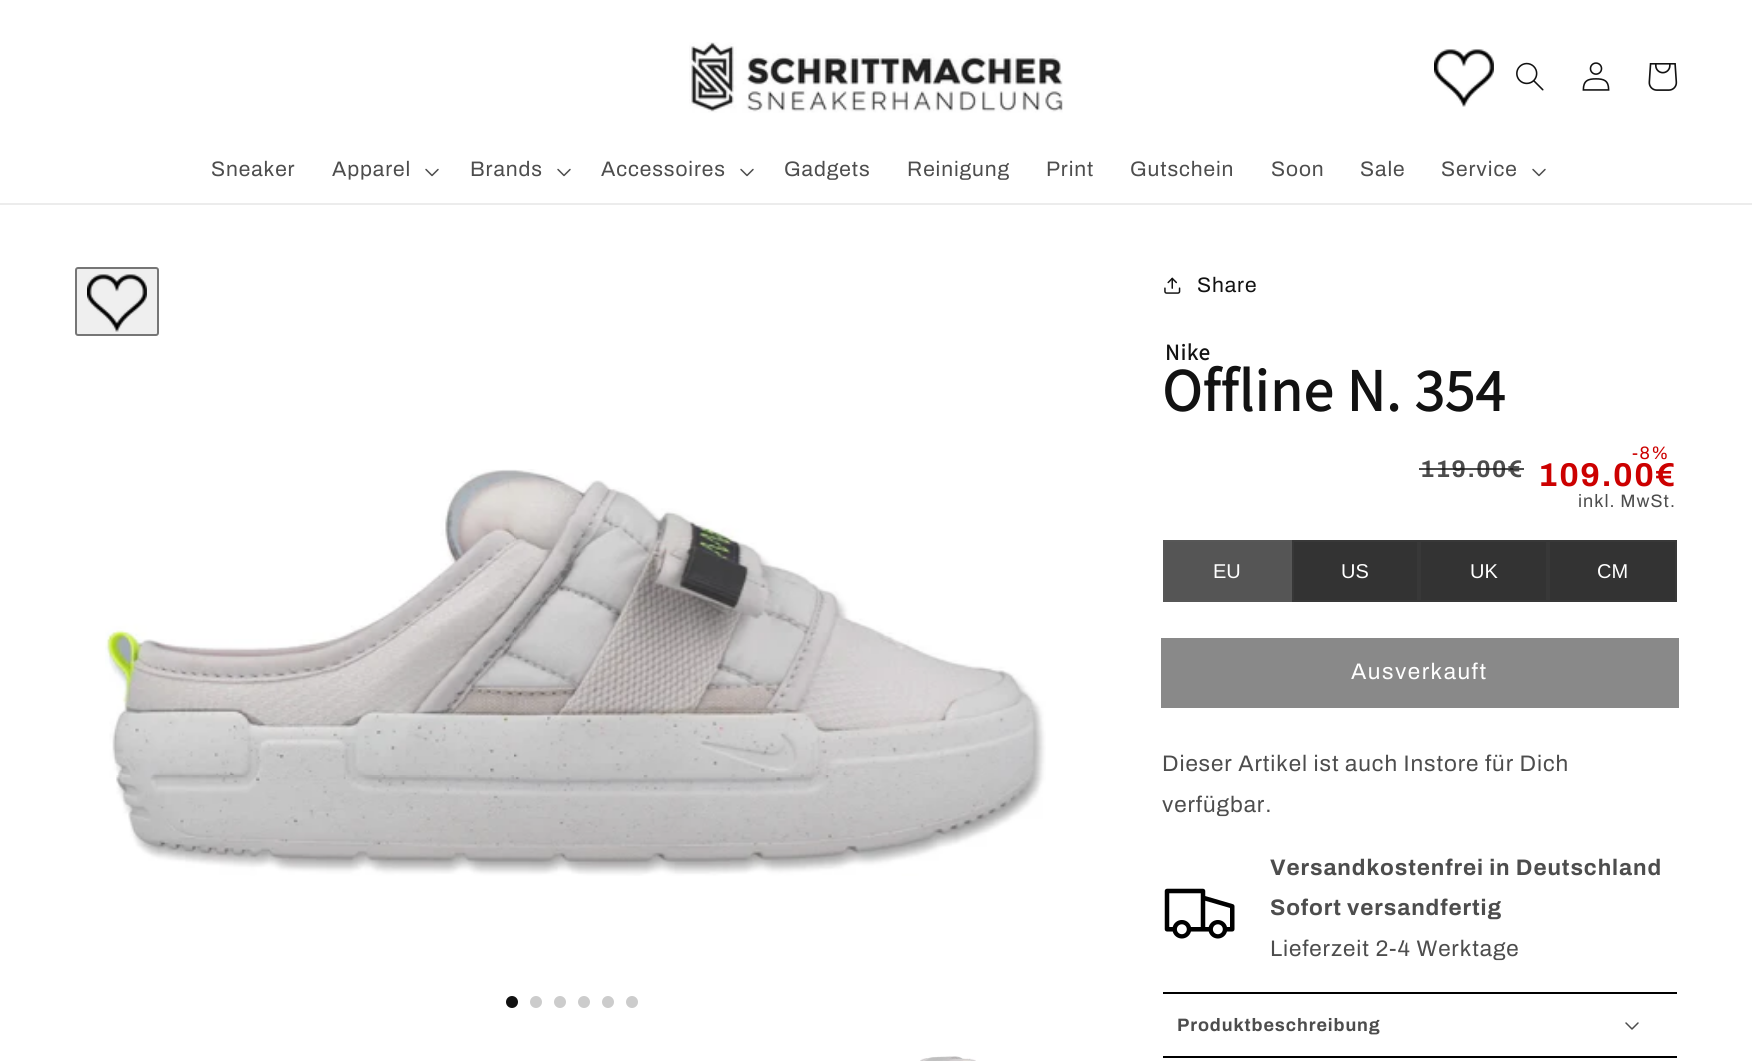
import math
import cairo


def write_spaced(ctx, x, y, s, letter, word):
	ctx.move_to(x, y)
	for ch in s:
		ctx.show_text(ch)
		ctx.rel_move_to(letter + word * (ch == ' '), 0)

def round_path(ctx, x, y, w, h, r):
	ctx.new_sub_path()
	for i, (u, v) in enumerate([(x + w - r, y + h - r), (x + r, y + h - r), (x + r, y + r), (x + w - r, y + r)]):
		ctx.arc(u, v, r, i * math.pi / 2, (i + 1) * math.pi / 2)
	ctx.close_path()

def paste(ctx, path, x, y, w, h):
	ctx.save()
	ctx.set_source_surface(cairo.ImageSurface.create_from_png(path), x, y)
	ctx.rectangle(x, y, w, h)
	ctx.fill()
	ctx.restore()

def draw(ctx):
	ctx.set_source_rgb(1, 1, 1)
	ctx.paint()
	ctx.set_source_rgb(0.925, 0.925, 0.925)
	ctx.rectangle(0, 203, 1752, 2)
	ctx.fill()
	paste(ctx, 'media/1.png', 689, 42, 374, 71)
	paste(ctx, 'media/2.png', 1434, 49, 60, 58)
	paste(ctx, 'media/3.png', 1516, 62, 28, 29)
	paste(ctx, 'media/4.png', 1582, 62, 28, 29)
	paste(ctx, 'media/5.png', 1648, 63, 30, 28)
	ctx.select_font_face('Archivo')
	ctx.set_font_size(21)
	ctx.set_source_rgb(0.302, 0.302, 0.302)
	write_spaced(ctx, 211, 176, 'Sneaker', 0.9, 0)
	write_spaced(ctx, 332, 176, 'Apparel', 0.9, 0)
	paste(ctx, 'media/6.png', 425, 168, 14, 9)
	write_spaced(ctx, 470, 176, 'Brands', 0.9, 0)
	paste(ctx, 'media/6.png', 557, 168, 14, 9)
	write_spaced(ctx, 601, 176, 'Accessoires', 0.9, 0)
	paste(ctx, 'media/6.png', 740, 168, 14, 9)
	for x, y, s in [
		(784, 176, 'Gadgets'),
		(907, 176, 'Reinigung'),
		(1046, 176, 'Print'),
		(1130, 176, 'Gutschein'),
		(1271, 176, 'Soon'),
		(1360, 176, 'Sale'),
		(1441, 176, 'Service'),
	]:
		write_spaced(ctx, x, y, s, 0.9, 0)
	paste(ctx, 'media/6.png', 1532, 168, 14, 9)
	ctx.set_source_rgb(0.937, 0.937, 0.937)
	round_path(ctx, 76, 268, 82, 67, 2)
	ctx.fill_preserve()
	ctx.set_source_rgb(0.463, 0.463, 0.463)
	ctx.stroke()
	paste(ctx, 'media/7.png', 87, 274, 60, 58)
	paste(ctx, 'media/8.png', 105, 469, 941, 407)
	ctx.set_source_rgb(0.067, 0.067, 0.067)
	ctx.arc(512, 1002, 6, 0, 2 * math.pi)
	ctx.fill()
	ctx.set_source_rgb(0.8, 0.8, 0.8)
	ctx.arc(536, 1002, 6, 0, 2 * math.pi)
	ctx.fill()
	ctx.arc(560, 1002, 6, 0, 2 * math.pi)
	ctx.fill()
	ctx.arc(584, 1002, 6, 0, 2 * math.pi)
	ctx.fill()
	ctx.arc(608, 1002, 6, 0, 2 * math.pi)
	ctx.fill()
	ctx.arc(632, 1002, 6, 0, 2 * math.pi)
	ctx.fill()
	paste(ctx, 'media/9.png', 920, 1056, 56, 5)
	paste(ctx, 'media/10.png', 1164, 277, 17, 17)
	ctx.set_source_rgb(0.071, 0.071, 0.071)
	write_spaced(ctx, 1197, 292, 'Share', 0.9, 0)
	ctx.select_font_face('Assistant', cairo.FONT_SLANT_NORMAL, cairo.FONT_WEIGHT_BOLD)
	ctx.set_font_size(22.5)
	write_spaced(ctx, 1165, 360, 'Nike', 0.9, 0)
	ctx.set_font_size(60)
	write_spaced(ctx, 1162, 411, 'Offline N. 354', 0.9, 0)
	ctx.select_font_face('Archivo', cairo.FONT_SLANT_NORMAL, cairo.FONT_WEIGHT_BOLD)
	ctx.set_font_size(24)
	ctx.set_source_rgb(0.302, 0.302, 0.302)
	write_spaced(ctx, 1420, 477, '119.00€', 1.5, 0)
	ctx.set_source_rgba(0.071, 0.071, 0.071, 0.75)
	ctx.rectangle(1419, 468, 105, 2)
	ctx.fill()
	ctx.select_font_face('Archivo')
	ctx.set_font_size(18)
	ctx.set_source_rgb(0.8, 0, 0)
	write_spaced(ctx, 1632, 459, '-8%', 1.5, 0)
	ctx.select_font_face('Archivo', cairo.FONT_SLANT_NORMAL, cairo.FONT_WEIGHT_BOLD)
	ctx.set_font_size(33)
	write_spaced(ctx, 1538, 486, '109.00€', 1.5, 0)
	ctx.select_font_face('Archivo')
	ctx.set_font_size(18)
	ctx.set_source_rgb(0.302, 0.302, 0.302)
	write_spaced(ctx, 1578, 507, 'inkl. MwSt.', 1, 0)
	ctx.set_source_rgb(0.2, 0.2, 0.2)
	ctx.rectangle(1294, 542, 381, 58)
	ctx.fill()
	ctx.set_source_rgb(0.333, 0.333, 0.333)
	ctx.rectangle(1164, 541, 127, 60)
	ctx.fill_preserve()
	ctx.set_source_rgb(0.341, 0.341, 0.341)
	ctx.stroke()
	ctx.select_font_face('Liberation Sans')
	ctx.set_font_size(20)
	ctx.set_source_rgb(1, 1, 1)
	ctx.move_to(1213, 578)
	ctx.show_text('EU')
	ctx.rectangle(1293, 541, 125, 60)
	ctx.set_source_rgb(0.22, 0.22, 0.22)
	ctx.stroke()
	ctx.set_source_rgb(1, 1, 1)
	ctx.move_to(1341, 578)
	ctx.show_text('US')
	ctx.rectangle(1420, 541, 127, 60)
	ctx.set_source_rgb(0.22, 0.22, 0.22)
	ctx.stroke()
	ctx.set_source_rgb(1, 1, 1)
	ctx.move_to(1470, 578)
	ctx.show_text('UK')
	ctx.rectangle(1549, 541, 127, 60)
	ctx.set_source_rgb(0.22, 0.22, 0.22)
	ctx.stroke()
	ctx.set_source_rgb(1, 1, 1)
	ctx.move_to(1597, 578)
	ctx.show_text('CM')
	ctx.rectangle(1162, 639, 516, 68)
	ctx.set_source_rgb(0.537, 0.537, 0.537)
	ctx.stroke()
	ctx.rectangle(1163, 640, 514, 66)
	ctx.fill()
	ctx.select_font_face('Archivo')
	ctx.set_font_size(22.5)
	ctx.set_source_rgb(1, 1, 1)
	write_spaced(ctx, 1351, 679, 'Ausverkauft', 1.5, 0)
	ctx.set_source_rgb(0.302, 0.302, 0.302)
	write_spaced(ctx, 1162, 771, 'Dieser Artikel ist auch Instore für Dich', 0.9, 0)
	write_spaced(ctx, 1162, 812, 'verfügbar.', 0.9, 0)
	paste(ctx, 'media/11.png', 1164, 888, 71, 51)
	ctx.select_font_face('Archivo', cairo.FONT_SLANT_NORMAL, cairo.FONT_WEIGHT_BOLD)
	write_spaced(ctx, 1270, 875, 'Versandkostenfrei in Deutschland', 0.9, 0)
	write_spaced(ctx, 1270, 915, 'Sofort versandfertig', 0.9, 0)
	ctx.select_font_face('Archivo')
	write_spaced(ctx, 1270, 956, 'Lieferzeit 2-4 Werktage', 0.9, 0)
	ctx.set_source_rgb(0, 0, 0)
	ctx.rectangle(1163, 992, 514, 2)
	ctx.fill()
	ctx.select_font_face('Archivo', cairo.FONT_SLANT_NORMAL, cairo.FONT_WEIGHT_BOLD)
	ctx.set_font_size(18)
	ctx.set_source_rgb(0.302, 0.302, 0.302)
	write_spaced(ctx, 1177, 1031, 'Produktbeschreibung', 0.9, 0)
	paste(ctx, 'media/12.png', 1625, 1022, 14, 8)
	ctx.set_source_rgb(0, 0, 0)
	ctx.rectangle(1163, 1056, 514, 2)
	ctx.fill()


surface = cairo.ImageSurface(cairo.FORMAT_RGB24, 1752, 1061)
ctx = cairo.Context(surface)
options = cairo.FontOptions()
options.set_hint_metrics(cairo.HINT_METRICS_OFF)
options.set_hint_style(cairo.HINT_STYLE_NONE)
ctx.set_font_options(options)
ctx.set_miter_limit(4)
draw(ctx)
surface.write_to_png('image.png')
